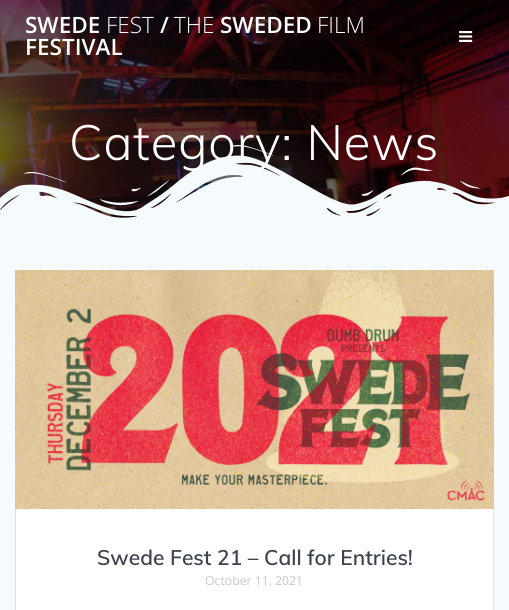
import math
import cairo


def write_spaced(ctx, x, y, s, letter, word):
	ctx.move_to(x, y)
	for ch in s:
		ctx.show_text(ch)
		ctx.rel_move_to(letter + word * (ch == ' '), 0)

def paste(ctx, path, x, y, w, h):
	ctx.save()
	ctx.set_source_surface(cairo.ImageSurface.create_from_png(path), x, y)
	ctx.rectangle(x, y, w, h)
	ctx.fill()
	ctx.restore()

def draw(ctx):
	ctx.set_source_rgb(1, 1, 1)
	ctx.paint()
	paste(ctx, 'media/2.png', 0, 0, 509, 218)
	ctx.select_font_face('Open Sans SemiBold')
	ctx.set_font_size(22.5)
	ctx.set_source_rgb(1, 1, 1)
	ctx.move_to(25, 33)
	ctx.show_text('SWEDE')
	ctx.select_font_face('Open Sans Light')
	ctx.move_to(106, 33)
	ctx.show_text('FEST')
	ctx.select_font_face('Open Sans SemiBold')
	ctx.move_to(160, 33)
	ctx.show_text('/')
	ctx.select_font_face('Open Sans Light')
	ctx.move_to(174, 33)
	ctx.show_text('THE')
	ctx.select_font_face('Open Sans SemiBold')
	ctx.move_to(220, 33)
	ctx.show_text('SWEDED')
	ctx.select_font_face('Open Sans Light')
	ctx.move_to(317, 33)
	ctx.show_text('FILM')
	ctx.select_font_face('Open Sans SemiBold')
	ctx.move_to(25, 55)
	ctx.show_text('FESTIVAL')
	ctx.set_source_rgba(0, 0, 0, 0.1)
	ctx.new_path()
	ctx.arc(466.5, 36.5, 17.5, 0, 2 * math.pi)
	ctx.fill()
	paste(ctx, 'media/1.png', 459, 31, 14, 11)
	paste(ctx, 'media/3.png', 0, 145, 509, 83)
	ctx.select_font_face('Muli Light')
	ctx.set_font_size(49)
	ctx.set_source_rgb(1, 1, 1)
	write_spaced(ctx, 69, 160, 'Category: News', 0.9, 0)
	ctx.set_source_rgb(0.961, 0.98, 0.992)
	ctx.rectangle(0, 228, 509, 382)
	ctx.fill()
	ctx.set_source_rgb(1, 1, 1)
	ctx.rectangle(16, 509, 477, 101)
	ctx.fill()
	ctx.rectangle(15.5, 270.5, 478, 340)
	ctx.set_source_rgb(0.878, 0.882, 0.882)
	ctx.set_line_width(1)
	ctx.stroke()
	paste(ctx, 'media/4.png', 15, 270, 479, 240)
	ctx.select_font_face('Muli SemiBold')
	ctx.set_font_size(21)
	ctx.set_source_rgb(0.235, 0.259, 0.31)
	ctx.move_to(97, 565)
	ctx.show_text('Swede Fest 21 – Call for Entries!')
	ctx.select_font_face('Open Sans')
	ctx.set_font_size(12.25)
	ctx.set_source_rgb(0.757, 0.788, 0.824)
	ctx.move_to(205, 585)
	ctx.show_text('October 11, 2021')


surface = cairo.ImageSurface(cairo.FORMAT_RGB24, 509, 610)
ctx = cairo.Context(surface)
options = cairo.FontOptions()
options.set_hint_metrics(cairo.HINT_METRICS_OFF)
options.set_hint_style(cairo.HINT_STYLE_NONE)
ctx.set_font_options(options)
ctx.set_miter_limit(4)
draw(ctx)
surface.write_to_png('image.png')
